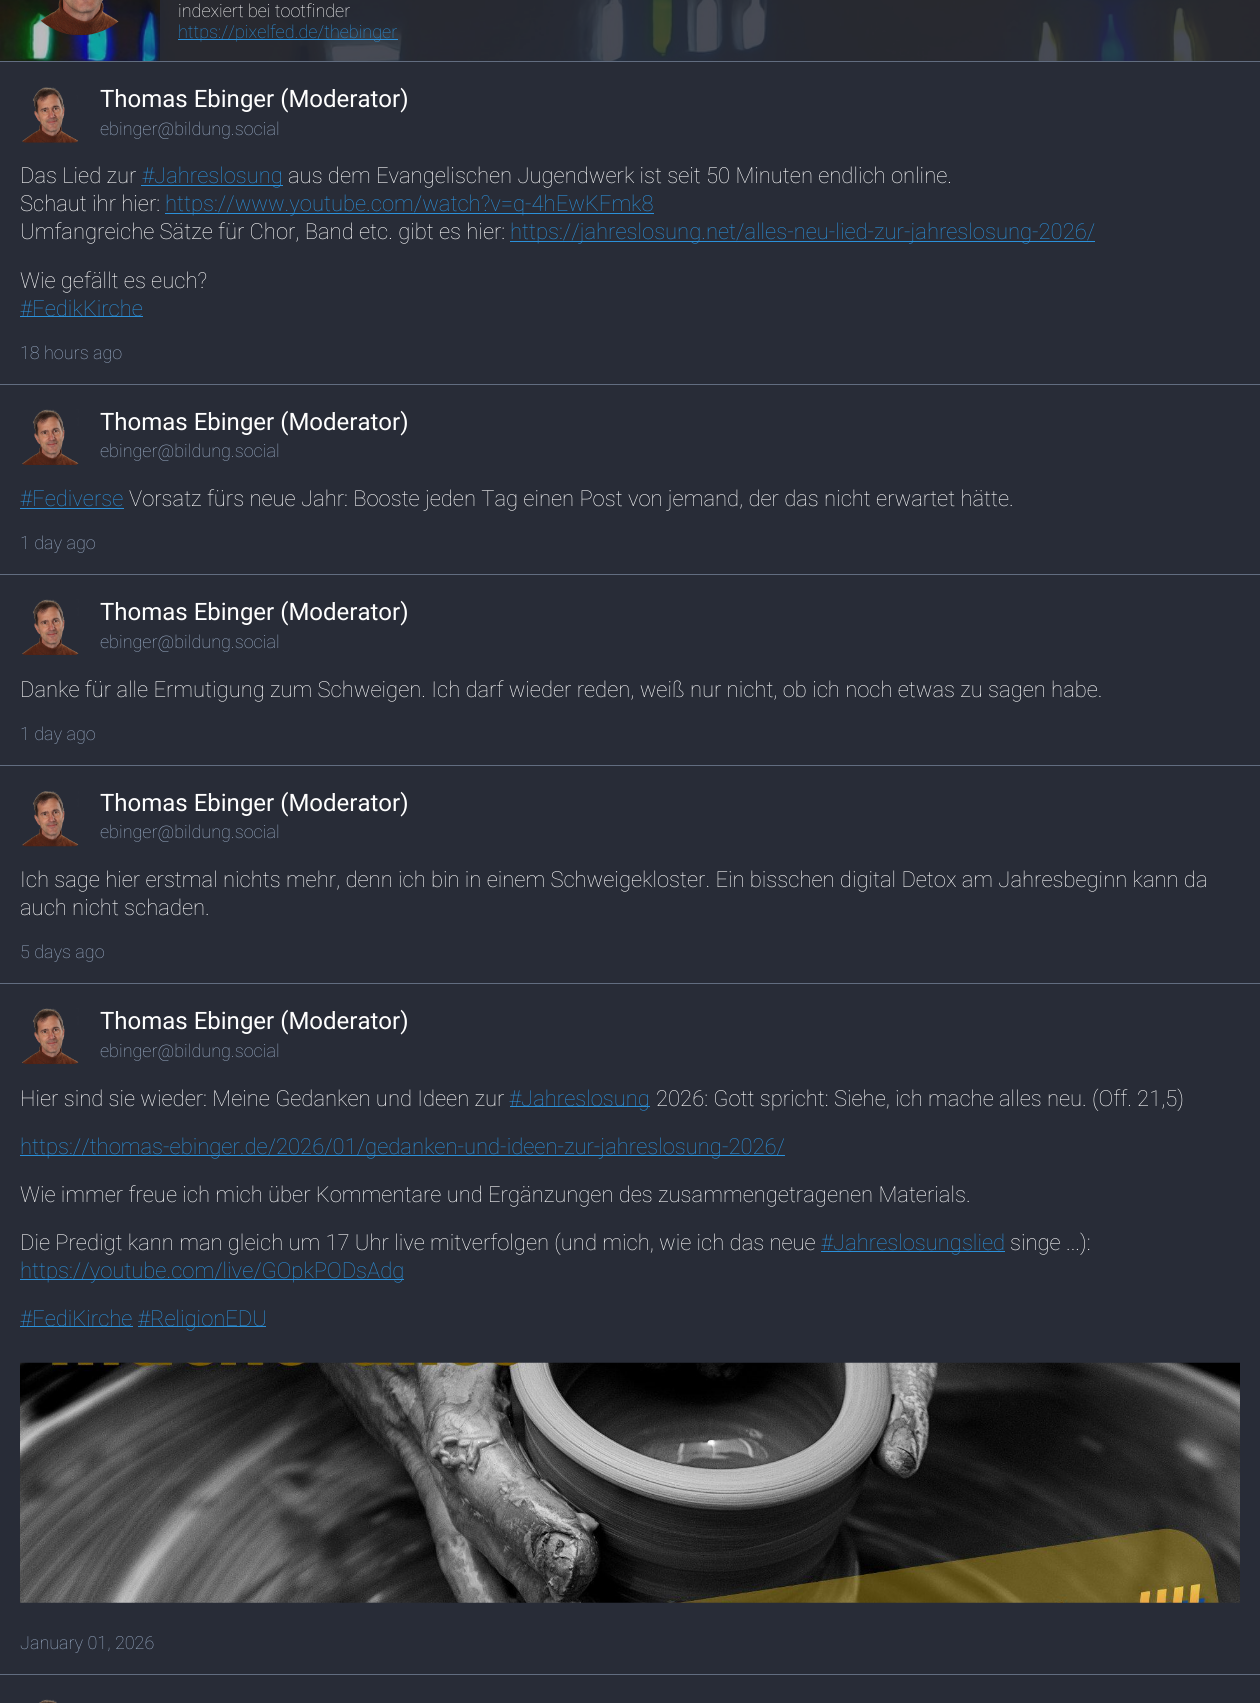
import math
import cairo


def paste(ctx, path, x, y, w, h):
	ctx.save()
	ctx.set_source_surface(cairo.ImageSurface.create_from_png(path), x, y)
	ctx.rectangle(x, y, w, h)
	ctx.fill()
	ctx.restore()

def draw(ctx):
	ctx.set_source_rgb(0.157, 0.173, 0.216)
	ctx.paint()
	paste(ctx, 'media/1.png', 0, 0, 1260, 61)
	ctx.set_source_rgba(0.157, 0.173, 0.216, 0.3)
	ctx.rectangle(0, 0, 160, 61)
	ctx.fill()
	paste(ctx, 'media/2.png', 40, 0, 79, 36)
	ctx.set_source_rgba(0.157, 0.173, 0.216, 0.85)
	ctx.rectangle(160, 0, 1100, 61)
	ctx.fill()
	ctx.select_font_face('Roboto Thin')
	ctx.set_font_size(18)
	ctx.set_source_rgb(1, 1, 1)
	ctx.move_to(178, 17)
	ctx.show_text('indexiert bei tootfinder')
	ctx.set_source_rgb(0.169, 0.565, 0.851)
	ctx.rectangle(178, 39, 220, 1)
	ctx.fill()
	ctx.move_to(178, 38)
	ctx.show_text('https://pixelfed.de/thebinger')
	ctx.set_source_rgb(0.384, 0.427, 0.502)
	ctx.rectangle(0, 61, 1260, 1)
	ctx.fill()
	paste(ctx, 'media/3.png', 22, 87, 56, 56)
	ctx.select_font_face('Roboto')
	ctx.set_font_size(24)
	ctx.set_source_rgb(1, 1, 1)
	ctx.move_to(100, 107)
	ctx.show_text('Thomas Ebinger (Moderator)')
	ctx.select_font_face('Roboto Thin')
	ctx.set_font_size(18)
	ctx.set_source_rgb(0.608, 0.682, 0.784)
	ctx.move_to(100, 135)
	ctx.show_text('ebinger@bildung.social')
	ctx.set_font_size(22)
	ctx.set_source_rgb(1, 1, 1)
	ctx.move_to(20, 183)
	ctx.show_text('Das Lied zur')
	ctx.set_source_rgb(0.169, 0.565, 0.851)
	ctx.rectangle(141, 185, 142, 1)
	ctx.fill()
	ctx.move_to(142, 183)
	ctx.show_text('#Jahreslosung')
	ctx.set_source_rgb(1, 1, 1)
	ctx.move_to(288, 183)
	ctx.show_text('aus dem Evangelischen Jugendwerk ist seit 50 Minuten endlich online.')
	ctx.move_to(20, 211)
	ctx.show_text('Schaut ihr hier:')
	ctx.set_source_rgb(0.169, 0.565, 0.851)
	ctx.rectangle(165, 213, 489, 1)
	ctx.fill()
	ctx.move_to(165, 211)
	ctx.show_text('https://www.youtube.com/watch?v=q-4hEwKFmk8')
	ctx.set_source_rgb(1, 1, 1)
	ctx.move_to(20, 239)
	ctx.show_text('Umfangreiche Sätze für Chor, Band etc. gibt es hier:')
	ctx.set_source_rgb(0.169, 0.565, 0.851)
	ctx.rectangle(510, 241, 585, 1)
	ctx.fill()
	ctx.move_to(510, 239)
	ctx.show_text('https://jahreslosung.net/alles-neu-lied-zur-jahreslosung-2026/')
	ctx.set_source_rgb(1, 1, 1)
	ctx.move_to(20, 288)
	ctx.show_text('Wie gefällt es euch?')
	ctx.set_source_rgb(0.169, 0.565, 0.851)
	ctx.rectangle(20, 316, 123, 1)
	ctx.fill()
	ctx.move_to(20, 316)
	ctx.show_text('#FedikKirche')
	ctx.set_font_size(18)
	ctx.set_source_rgb(0.608, 0.682, 0.784)
	ctx.move_to(20, 359)
	ctx.show_text('18 hours ago')
	ctx.set_source_rgb(0.384, 0.427, 0.502)
	ctx.rectangle(0, 384, 1260, 1)
	ctx.fill()
	paste(ctx, 'media/4.png', 22, 409, 57, 56)
	ctx.select_font_face('Roboto')
	ctx.set_font_size(24)
	ctx.set_source_rgb(1, 1, 1)
	ctx.move_to(100, 430)
	ctx.show_text('Thomas Ebinger (Moderator)')
	ctx.select_font_face('Roboto Thin')
	ctx.set_font_size(18)
	ctx.set_source_rgb(0.608, 0.682, 0.784)
	ctx.move_to(100, 457)
	ctx.show_text('ebinger@bildung.social')
	ctx.set_font_size(22)
	ctx.set_source_rgb(0.169, 0.565, 0.851)
	ctx.move_to(20, 506)
	ctx.show_text('#Fediverse')
	ctx.rectangle(20, 508, 104, 1)
	ctx.fill()
	ctx.set_source_rgb(1, 1, 1)
	ctx.move_to(129, 506)
	ctx.show_text('Vorsatz fürs neue Jahr: Booste jeden Tag einen Post von jemand, der das nicht erwartet hätte.')
	ctx.set_font_size(18)
	ctx.set_source_rgb(0.608, 0.682, 0.784)
	ctx.move_to(20, 549)
	ctx.show_text('1 day ago')
	ctx.set_source_rgb(0.384, 0.427, 0.502)
	ctx.rectangle(0, 574, 1260, 1)
	ctx.fill()
	paste(ctx, 'media/5.png', 22, 599, 57, 56)
	ctx.select_font_face('Roboto')
	ctx.set_font_size(24)
	ctx.set_source_rgb(1, 1, 1)
	ctx.move_to(100, 620)
	ctx.show_text('Thomas Ebinger (Moderator)')
	ctx.select_font_face('Roboto Thin')
	ctx.set_font_size(18)
	ctx.set_source_rgb(0.608, 0.682, 0.784)
	ctx.move_to(100, 648)
	ctx.show_text('ebinger@bildung.social')
	ctx.set_font_size(22)
	ctx.set_source_rgb(1, 1, 1)
	ctx.move_to(20, 697)
	ctx.show_text('Danke für alle Ermutigung zum Schweigen. Ich darf wieder reden, weiß nur nicht, ob ich noch etwas zu sagen habe.')
	ctx.set_font_size(18)
	ctx.set_source_rgb(0.608, 0.682, 0.784)
	ctx.move_to(20, 740)
	ctx.show_text('1 day ago')
	ctx.set_source_rgb(0.384, 0.427, 0.502)
	ctx.rectangle(0, 765, 1260, 1)
	ctx.fill()
	paste(ctx, 'media/6.png', 22, 791, 57, 56)
	ctx.select_font_face('Roboto')
	ctx.set_font_size(24)
	ctx.set_source_rgb(1, 1, 1)
	ctx.move_to(100, 811)
	ctx.show_text('Thomas Ebinger (Moderator)')
	ctx.select_font_face('Roboto Thin')
	ctx.set_font_size(18)
	ctx.set_source_rgb(0.608, 0.682, 0.784)
	ctx.move_to(100, 838)
	ctx.show_text('ebinger@bildung.social')
	ctx.set_font_size(22)
	ctx.set_source_rgb(1, 1, 1)
	ctx.move_to(20, 887)
	ctx.show_text('Ich sage hier erstmal nichts mehr, denn ich bin in einem Schweigekloster. Ein bisschen digital Detox am Jahresbeginn kann da')
	ctx.move_to(20, 915)
	ctx.show_text('auch nicht schaden.')
	ctx.set_font_size(18)
	ctx.set_source_rgb(0.608, 0.682, 0.784)
	ctx.move_to(20, 958)
	ctx.show_text('5 days ago')
	ctx.set_source_rgb(0.384, 0.427, 0.502)
	ctx.rectangle(0, 983, 1260, 1)
	ctx.fill()
	paste(ctx, 'media/7.png', 22, 1008, 57, 56)
	ctx.select_font_face('Roboto')
	ctx.set_font_size(24)
	ctx.set_source_rgb(1, 1, 1)
	ctx.move_to(100, 1029)
	ctx.show_text('Thomas Ebinger (Moderator)')
	ctx.select_font_face('Roboto Thin')
	ctx.set_font_size(18)
	ctx.set_source_rgb(0.608, 0.682, 0.784)
	ctx.move_to(100, 1057)
	ctx.show_text('ebinger@bildung.social')
	ctx.set_font_size(22)
	ctx.set_source_rgb(1, 1, 1)
	ctx.move_to(20, 1106)
	ctx.show_text('Hier sind sie wieder: Meine Gedanken und Ideen zur')
	ctx.set_source_rgb(0.169, 0.565, 0.851)
	ctx.rectangle(510, 1106, 140, 1)
	ctx.fill()
	ctx.move_to(509, 1106)
	ctx.show_text('#Jahreslosung')
	ctx.set_source_rgb(1, 1, 1)
	ctx.move_to(656, 1106)
	ctx.show_text('2026: Gott spricht: Siehe, ich mache alles neu. (Off. 21,5)')
	ctx.set_source_rgb(0.169, 0.565, 0.851)
	ctx.rectangle(20, 1155, 765, 1)
	ctx.fill()
	ctx.move_to(20, 1154)
	ctx.show_text('https://thomas-ebinger.de/2026/01/gedanken-und-ideen-zur-jahreslosung-2026/')
	ctx.set_source_rgb(1, 1, 1)
	ctx.move_to(20, 1202)
	ctx.show_text('Wie immer freue ich mich über Kommentare und Ergänzungen des zusammengetragenen Materials.')
	ctx.move_to(20, 1250)
	ctx.show_text('Die Predigt kann man gleich um 17 Uhr live mitverfolgen (und mich, wie ich das neue')
	ctx.set_source_rgb(0.169, 0.565, 0.851)
	ctx.rectangle(821, 1251, 184, 1)
	ctx.fill()
	ctx.move_to(821, 1250)
	ctx.show_text('#Jahreslosungslied')
	ctx.set_source_rgb(1, 1, 1)
	ctx.move_to(1010, 1250)
	ctx.show_text('singe ...):')
	ctx.set_source_rgb(0.169, 0.565, 0.851)
	ctx.rectangle(20, 1279, 384, 1)
	ctx.fill()
	ctx.move_to(20, 1278)
	ctx.show_text('https://youtube.com/live/GOpkPODsAdg')
	ctx.rectangle(20, 1326, 113, 1)
	ctx.fill()
	ctx.move_to(20, 1326)
	ctx.show_text('#FediKirche #')
	ctx.rectangle(138, 1326, 128, 1)
	ctx.fill()
	ctx.move_to(150, 1326)
	ctx.show_text('ReligionEDU')
	paste(ctx, 'media/8.png', 20, 1362, 1220, 241)
	ctx.set_font_size(18)
	ctx.set_source_rgb(0.608, 0.682, 0.784)
	ctx.move_to(20, 1649)
	ctx.show_text('January 01, 2026')
	ctx.set_source_rgb(0.384, 0.427, 0.502)
	ctx.rectangle(0, 1674, 1260, 1)
	ctx.fill()
	paste(ctx, 'media/9.png', 39, 1699, 18, 4)


surface = cairo.ImageSurface(cairo.FORMAT_RGB24, 1260, 1703)
ctx = cairo.Context(surface)
options = cairo.FontOptions()
options.set_hint_metrics(cairo.HINT_METRICS_OFF)
options.set_hint_style(cairo.HINT_STYLE_NONE)
ctx.set_font_options(options)
ctx.set_miter_limit(4)
draw(ctx)
surface.write_to_png('image.png')
